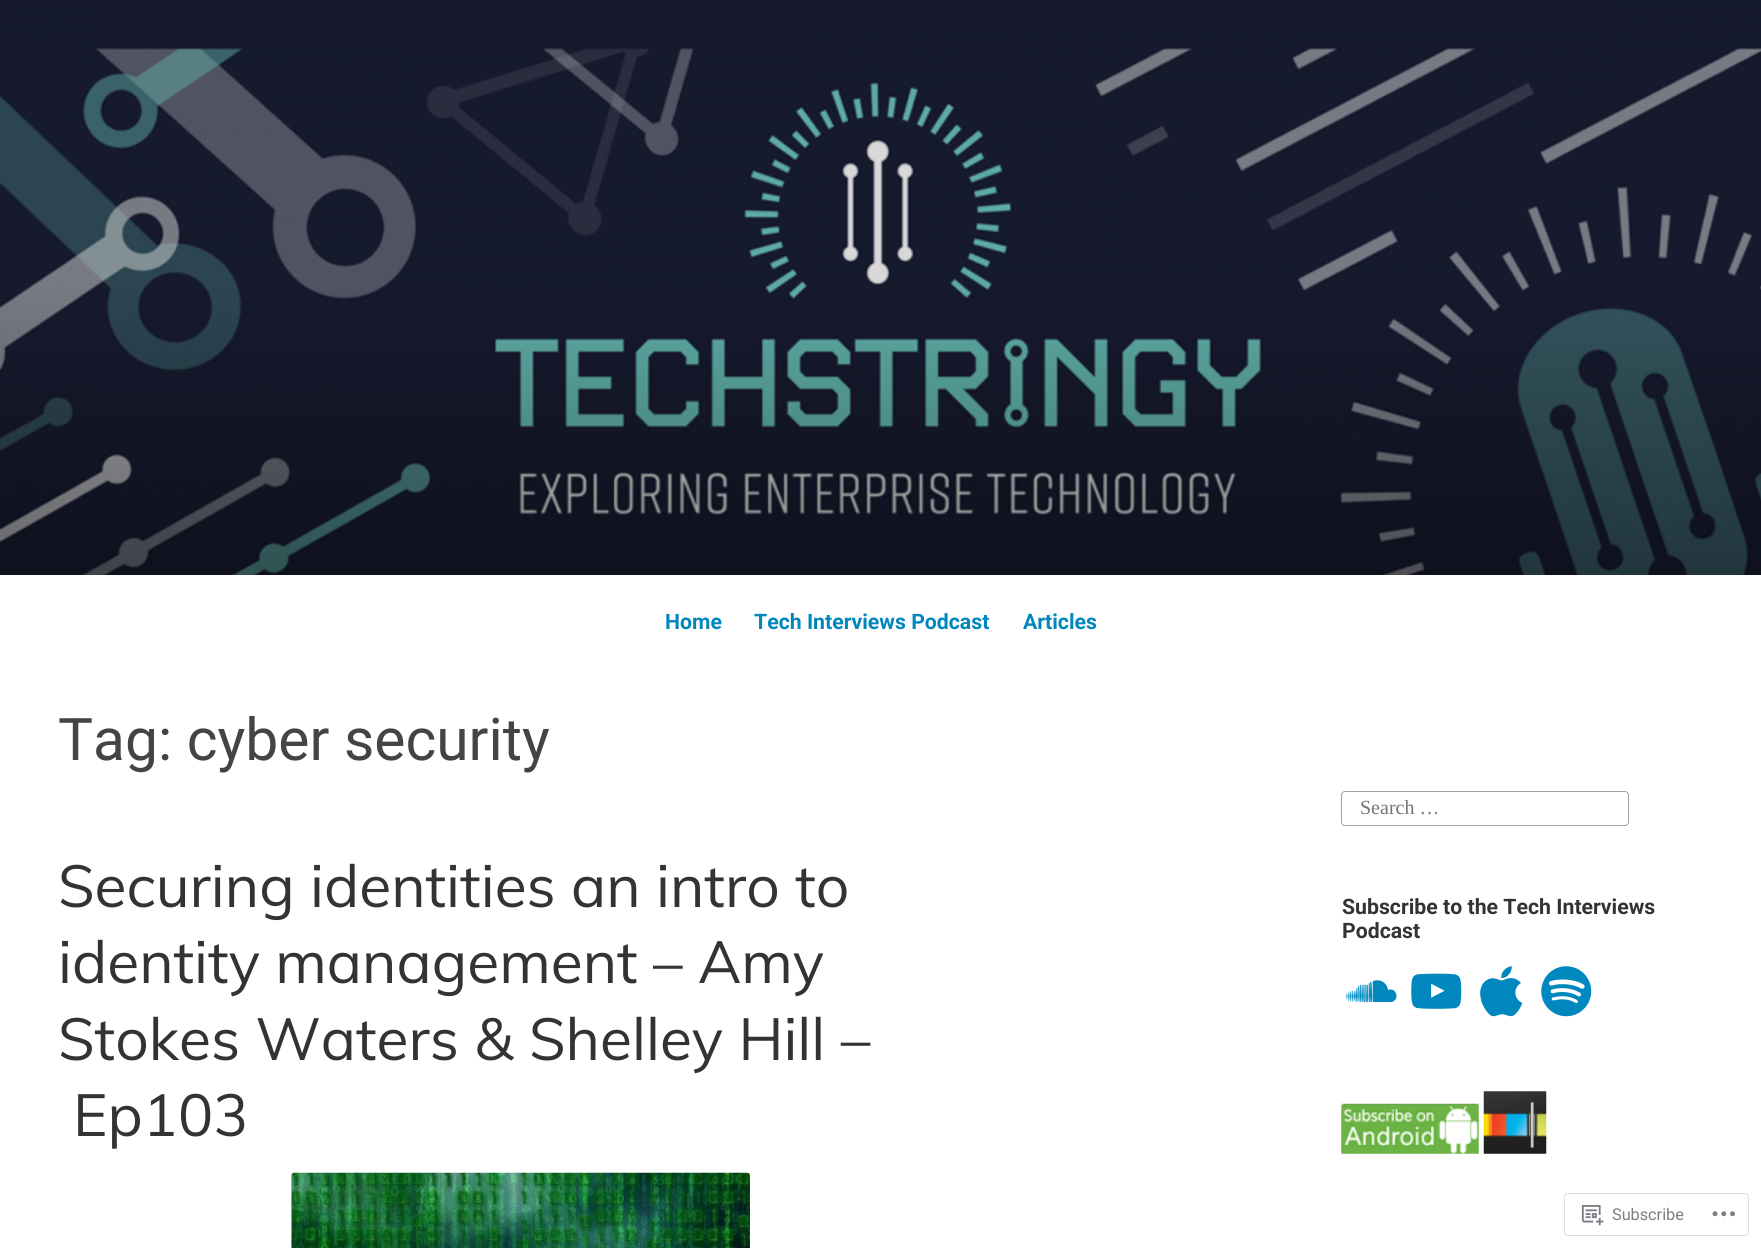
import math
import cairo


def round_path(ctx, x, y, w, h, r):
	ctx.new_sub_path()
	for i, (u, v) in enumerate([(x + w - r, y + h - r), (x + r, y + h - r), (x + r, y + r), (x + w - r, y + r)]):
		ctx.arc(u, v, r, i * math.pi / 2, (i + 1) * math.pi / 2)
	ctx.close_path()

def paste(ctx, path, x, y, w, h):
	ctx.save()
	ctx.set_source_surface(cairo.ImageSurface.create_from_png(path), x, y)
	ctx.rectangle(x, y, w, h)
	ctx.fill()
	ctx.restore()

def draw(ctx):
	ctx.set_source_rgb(1, 1, 1)
	ctx.paint()
	paste(ctx, 'media/1.png', 0, 0, 1761, 575)
	ctx.select_font_face('Roboto', cairo.FONT_SLANT_NORMAL, cairo.FONT_WEIGHT_BOLD)
	ctx.set_font_size(21.25)
	ctx.set_source_rgb(0, 0.529, 0.745)
	for x, y, s in [
		(665, 629, 'Home'),
		(754, 629, 'Tech Interviews Podcast'),
		(1023, 629, 'Articles'),
	]:
		ctx.move_to(x, y)
		ctx.show_text(s)
	ctx.select_font_face('Roboto')
	ctx.set_font_size(58.75)
	ctx.set_source_rgb(0.267, 0.267, 0.267)
	ctx.move_to(58, 760)
	ctx.show_text('Tag: cyber security')
	ctx.select_font_face('Muli')
	ctx.set_source_rgb(0.2, 0.2, 0.196)
	for x, y, s in [
		(58, 907, 'Securing identities an intro to'),
		(58, 983, 'identity management – Amy'),
		(58, 1060, 'Stokes Waters & Shelley Hill –'),
		(73, 1136, 'Ep103'),
	]:
		ctx.move_to(x, y)
		ctx.show_text(s)
	paste(ctx, 'media/2.png', 291, 1172, 459, 76)
	round_path(ctx, 1341.5, 791.5, 287, 34, 3.5)
	ctx.set_source_rgb(0.631, 0.631, 0.631)
	ctx.set_line_width(1)
	ctx.stroke()
	ctx.select_font_face('Liberation Serif')
	ctx.set_font_size(20)
	ctx.set_source_rgb(0.459, 0.459, 0.459)
	ctx.move_to(1360, 814)
	ctx.show_text('Search …')
	ctx.select_font_face('Roboto', cairo.FONT_SLANT_NORMAL, cairo.FONT_WEIGHT_BOLD)
	ctx.set_font_size(21.25)
	ctx.set_source_rgb(0.2, 0.2, 0.196)
	ctx.move_to(1342, 914)
	ctx.show_text('Subscribe to the Tech Interviews')
	ctx.move_to(1342, 938)
	ctx.show_text('Podcast')
	paste(ctx, 'media/3.png', 1346, 980, 51, 23)
	paste(ctx, 'media/4.png', 1411, 973, 51, 36)
	paste(ctx, 'media/5.png', 1480, 966, 43, 51)
	paste(ctx, 'media/6.png', 1541, 966, 51, 51)
	paste(ctx, 'media/7.png', 1341, 1103, 138, 51)
	paste(ctx, 'media/8.png', 1483, 1091, 64, 63)
	round_path(ctx, 1564.5, 1193.5, 184, 42, 3.5)
	ctx.set_source_rgb(0.867, 0.867, 0.875)
	ctx.stroke()
	paste(ctx, 'media/9.png', 1581, 1205, 23, 21)
	ctx.select_font_face('Roboto')
	ctx.set_font_size(16.25)
	ctx.set_source_rgb(0.482, 0.498, 0.522)
	ctx.move_to(1612, 1220)
	ctx.show_text('Subscribe')
	paste(ctx, 'media/10.png', 1712, 1211, 23, 6)


surface = cairo.ImageSurface(cairo.FORMAT_RGB24, 1761, 1248)
ctx = cairo.Context(surface)
options = cairo.FontOptions()
options.set_hint_metrics(cairo.HINT_METRICS_OFF)
options.set_hint_style(cairo.HINT_STYLE_NONE)
ctx.set_font_options(options)
ctx.set_miter_limit(4)
draw(ctx)
surface.write_to_png('image.png')
